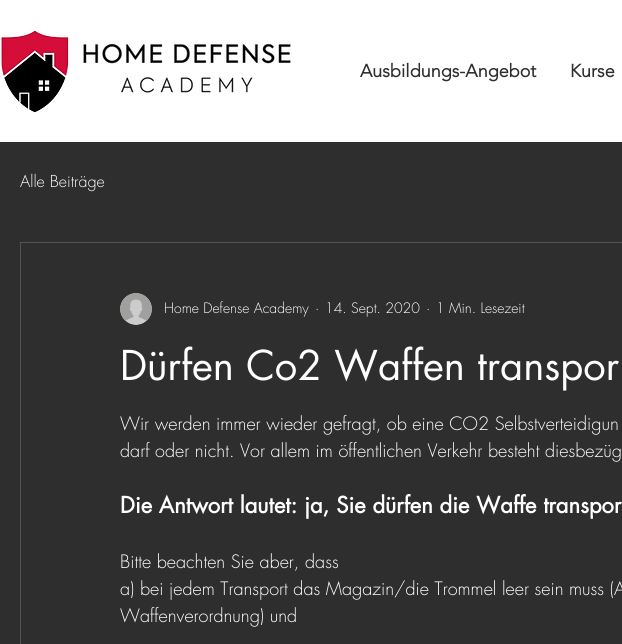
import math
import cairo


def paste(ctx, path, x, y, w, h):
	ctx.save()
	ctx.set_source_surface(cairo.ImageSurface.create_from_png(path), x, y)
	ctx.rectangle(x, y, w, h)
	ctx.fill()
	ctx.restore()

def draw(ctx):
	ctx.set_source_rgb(1, 1, 1)
	ctx.paint()
	paste(ctx, 'media/1.png', 0, 29, 291, 84)
	ctx.select_font_face('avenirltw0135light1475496', cairo.FONT_SLANT_NORMAL, cairo.FONT_WEIGHT_BOLD)
	ctx.set_font_size(18)
	ctx.set_source_rgb(0.184, 0.18, 0.18)
	ctx.move_to(360, 77)
	ctx.show_text('Ausbildungs-Angebot')
	ctx.move_to(570, 77)
	ctx.show_text('Kurse')
	ctx.rectangle(0, 142, 622, 502)
	ctx.fill()
	ctx.select_font_face('futura Light')
	ctx.set_font_size(16)
	ctx.set_source_rgb(1, 1, 1)
	ctx.move_to(20, 187)
	ctx.show_text('Alle Beiträge')
	ctx.rectangle(20.5, 242.5, 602, 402)
	ctx.set_source_rgb(0.329, 0.322, 0.322)
	ctx.set_line_width(1)
	ctx.stroke()
	paste(ctx, 'media/2.png', 120, 293, 32, 32)
	ctx.set_font_size(14)
	ctx.set_source_rgb(1, 1, 1)
	for x, y, s in [
		(164, 313, 'Home Defense Academy'),
		(315, 313, '·'),
		(325, 313, '14. Sept. 2020'),
		(426, 313, '·'),
		(436, 313, '1 Min. Lesezeit'),
	]:
		ctx.move_to(x, y)
		ctx.show_text(s)
	ctx.select_font_face('futura')
	ctx.set_font_size(40)
	ctx.move_to(120, 380)
	ctx.show_text('Dürfen Co2 Waffen transpor')
	ctx.select_font_face('futura Light')
	ctx.set_font_size(18)
	ctx.move_to(120, 430)
	ctx.show_text('Wir werden immer wieder gefragt, ob eine CO2 Selbstverteidigun')
	ctx.move_to(120, 457)
	ctx.show_text('darf oder nicht. Vor allem im öffentlichen Verkehr besteht diesbezüg')
	ctx.select_font_face('futura', cairo.FONT_SLANT_NORMAL, cairo.FONT_WEIGHT_BOLD)
	ctx.set_font_size(22)
	ctx.move_to(120, 513)
	ctx.show_text('Die Antwort lautet: ja, Sie dürfen die Waffe transpor')
	ctx.select_font_face('futura Light')
	ctx.set_font_size(18)
	for x, y, s in [
		(120, 568, 'Bitte beachten Sie aber, dass'),
		(120, 595, 'a) bei jedem Transport das Magazin/die Trommel leer sein muss (A'),
		(120, 622, 'Waffenverordnung) und'),
	]:
		ctx.move_to(x, y)
		ctx.show_text(s)


surface = cairo.ImageSurface(cairo.FORMAT_RGB24, 622, 644)
ctx = cairo.Context(surface)
options = cairo.FontOptions()
options.set_hint_metrics(cairo.HINT_METRICS_OFF)
options.set_hint_style(cairo.HINT_STYLE_NONE)
ctx.set_font_options(options)
ctx.set_miter_limit(4)
draw(ctx)
surface.write_to_png('image.png')
